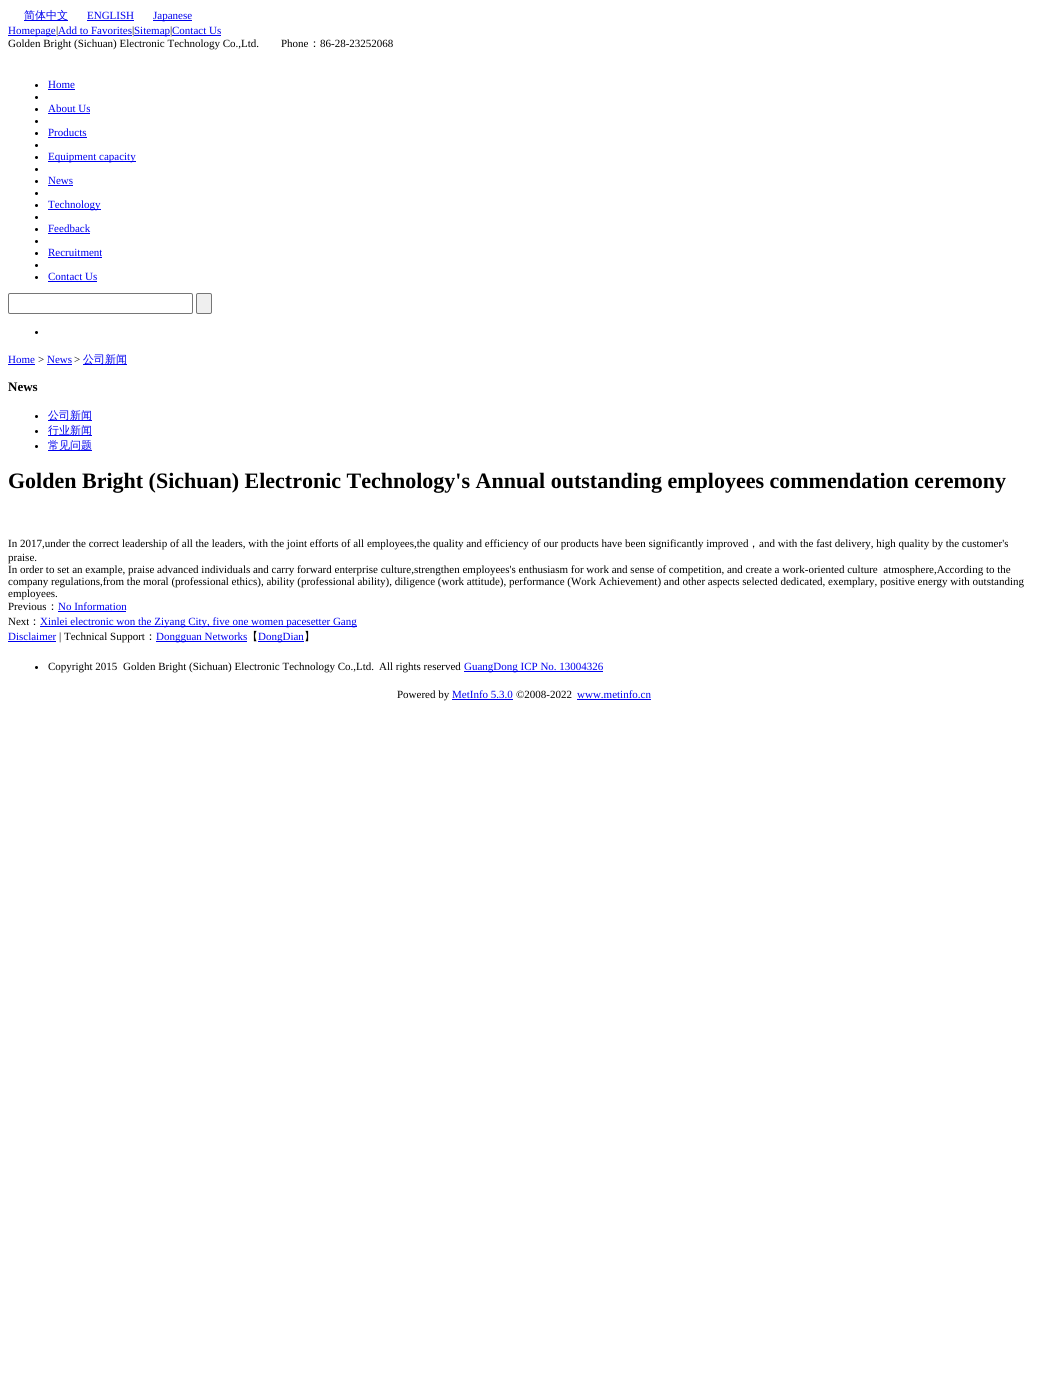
import math
import cairo


def round_path(ctx, x, y, w, h, r):
	ctx.new_sub_path()
	for i, (u, v) in enumerate([(x + w - r, y + h - r), (x + r, y + h - r), (x + r, y + r), (x + w - r, y + r)]):
		ctx.arc(u, v, r, i * math.pi / 2, (i + 1) * math.pi / 2)
	ctx.close_path()

def draw(ctx):
	ctx.set_source_rgb(1, 1, 1)
	ctx.paint()
	ctx.set_source_rgb(0, 0, 0.933)
	ctx.rectangle(24, 20, 44, 1)
	ctx.fill()
	ctx.select_font_face('WenQuanYi Zen Hei Medium')
	ctx.set_font_size(11)
	ctx.move_to(24, 19)
	ctx.show_text('简体中文')
	ctx.select_font_face('Liberation Serif')
	ctx.move_to(87, 19)
	ctx.show_text('ENGLISH')
	ctx.rectangle(87, 20, 47, 1)
	ctx.fill()
	ctx.rectangle(153, 20, 39, 1)
	ctx.fill()
	ctx.move_to(153, 19)
	ctx.show_text('Japanese')
	ctx.rectangle(8, 35, 48, 1)
	ctx.fill()
	ctx.move_to(8, 34)
	ctx.show_text('Homepage')
	ctx.set_source_rgb(0, 0, 0)
	ctx.move_to(56, 34)
	ctx.show_text('|')
	ctx.set_source_rgb(0, 0, 0.933)
	ctx.move_to(58, 34)
	ctx.show_text('Add to Favorites')
	ctx.rectangle(58, 35, 74, 1)
	ctx.fill()
	ctx.set_source_rgb(0, 0, 0)
	ctx.move_to(132, 34)
	ctx.show_text('|')
	ctx.set_source_rgb(0, 0, 0.933)
	ctx.rectangle(134, 35, 36, 1)
	ctx.fill()
	ctx.move_to(134, 34)
	ctx.show_text('Sitemap')
	ctx.set_source_rgb(0, 0, 0)
	ctx.move_to(170, 34)
	ctx.show_text('|')
	ctx.set_source_rgb(0, 0, 0.933)
	ctx.move_to(172, 34)
	ctx.show_text('Contact Us')
	ctx.rectangle(172, 35, 49, 1)
	ctx.fill()
	ctx.set_source_rgb(0, 0, 0)
	ctx.move_to(8, 47)
	ctx.show_text('Golden Bright (Sichuan) Electronic Technology Co.,Ltd.')
	ctx.move_to(281, 47)
	ctx.show_text('Phone')
	ctx.select_font_face('WenQuanYi Zen Hei Medium')
	ctx.move_to(309, 47)
	ctx.show_text('：')
	ctx.select_font_face('Liberation Serif')
	ctx.move_to(320, 47)
	ctx.show_text('86-28-23252068')
	ctx.new_path()
	ctx.arc(36.5, 85.5, 1.5, 0, 2 * math.pi)
	ctx.fill()
	ctx.set_source_rgb(0, 0, 0.933)
	ctx.move_to(48, 88)
	ctx.show_text('Home')
	ctx.rectangle(48, 89, 27, 1)
	ctx.fill()
	ctx.set_source_rgb(0, 0, 0)
	ctx.arc(36.5, 97.5, 1.5, 0, 2 * math.pi)
	ctx.fill()
	ctx.arc(36.5, 109.5, 1.5, 0, 2 * math.pi)
	ctx.fill()
	ctx.set_source_rgb(0, 0, 0.933)
	ctx.move_to(48, 112)
	ctx.show_text('About Us')
	ctx.rectangle(48, 113, 42, 1)
	ctx.fill()
	ctx.set_source_rgb(0, 0, 0)
	ctx.arc(36.5, 121.5, 1.5, 0, 2 * math.pi)
	ctx.fill()
	ctx.arc(36.5, 133.5, 1.5, 0, 2 * math.pi)
	ctx.fill()
	ctx.set_source_rgb(0, 0, 0.933)
	ctx.move_to(48, 136)
	ctx.show_text('Products')
	ctx.rectangle(48, 137, 39, 1)
	ctx.fill()
	ctx.set_source_rgb(0, 0, 0)
	ctx.arc(36.5, 145.5, 1.5, 0, 2 * math.pi)
	ctx.fill()
	ctx.arc(36.5, 157.5, 1.5, 0, 2 * math.pi)
	ctx.fill()
	ctx.set_source_rgb(0, 0, 0.933)
	ctx.rectangle(48, 161, 88, 1)
	ctx.fill()
	ctx.move_to(48, 160)
	ctx.show_text('Equipment capacity')
	ctx.set_source_rgb(0, 0, 0)
	ctx.new_path()
	ctx.arc(36.5, 169.5, 1.5, 0, 2 * math.pi)
	ctx.fill()
	ctx.arc(36.5, 181.5, 1.5, 0, 2 * math.pi)
	ctx.fill()
	ctx.set_source_rgb(0, 0, 0.933)
	ctx.move_to(48, 184)
	ctx.show_text('News')
	ctx.rectangle(48, 185, 25, 1)
	ctx.fill()
	ctx.set_source_rgb(0, 0, 0)
	ctx.arc(36.5, 193.5, 1.5, 0, 2 * math.pi)
	ctx.fill()
	ctx.arc(36.5, 205.5, 1.5, 0, 2 * math.pi)
	ctx.fill()
	ctx.set_source_rgb(0, 0, 0.933)
	ctx.rectangle(48, 209, 53, 1)
	ctx.fill()
	ctx.move_to(48, 208)
	ctx.show_text('Technology')
	ctx.set_source_rgb(0, 0, 0)
	ctx.new_path()
	ctx.arc(36.5, 217.5, 1.5, 0, 2 * math.pi)
	ctx.fill()
	ctx.arc(36.5, 229.5, 1.5, 0, 2 * math.pi)
	ctx.fill()
	ctx.set_source_rgb(0, 0, 0.933)
	ctx.move_to(48, 232)
	ctx.show_text('Feedback')
	ctx.rectangle(48, 233, 42, 1)
	ctx.fill()
	ctx.set_source_rgb(0, 0, 0)
	ctx.arc(36.5, 241.5, 1.5, 0, 2 * math.pi)
	ctx.fill()
	ctx.arc(36.5, 253.5, 1.5, 0, 2 * math.pi)
	ctx.fill()
	ctx.set_source_rgb(0, 0, 0.933)
	ctx.move_to(48, 256)
	ctx.show_text('Recruitment')
	ctx.rectangle(48, 257, 54, 1)
	ctx.fill()
	ctx.set_source_rgb(0, 0, 0)
	ctx.arc(36.5, 265.5, 1.5, 0, 2 * math.pi)
	ctx.fill()
	ctx.arc(36.5, 277.5, 1.5, 0, 2 * math.pi)
	ctx.fill()
	ctx.set_source_rgb(0, 0, 0.933)
	ctx.move_to(48, 280)
	ctx.show_text('Contact Us')
	ctx.rectangle(48, 281, 49, 1)
	ctx.fill()
	round_path(ctx, 8.5, 293.5, 184, 20, 1.5)
	ctx.set_source_rgb(0.463, 0.463, 0.463)
	ctx.set_line_width(1)
	ctx.stroke()
	ctx.set_source_rgb(0.937, 0.937, 0.937)
	round_path(ctx, 196.5, 293.5, 15, 20, 1.5)
	ctx.fill_preserve()
	ctx.set_source_rgb(0.463, 0.463, 0.463)
	ctx.stroke()
	ctx.set_source_rgb(0, 0, 0)
	ctx.arc(36.5, 332.5, 1.5, 0, 2 * math.pi)
	ctx.fill()
	ctx.set_source_rgb(0, 0, 0.933)
	ctx.move_to(8, 363)
	ctx.show_text('Home')
	ctx.rectangle(8, 364, 27, 1)
	ctx.fill()
	ctx.set_source_rgb(0, 0, 0)
	ctx.move_to(38, 363)
	ctx.show_text('>')
	ctx.set_source_rgb(0, 0, 0.933)
	ctx.move_to(47, 363)
	ctx.show_text('News')
	ctx.rectangle(47, 364, 25, 1)
	ctx.fill()
	ctx.set_source_rgb(0, 0, 0)
	ctx.move_to(74, 363)
	ctx.show_text('>')
	ctx.set_source_rgb(0, 0, 0.933)
	ctx.rectangle(83, 364, 44, 1)
	ctx.fill()
	ctx.select_font_face('WenQuanYi Zen Hei Medium')
	ctx.move_to(83, 363)
	ctx.show_text('公司新闻')
	ctx.select_font_face('Liberation Serif', cairo.FONT_SLANT_NORMAL, cairo.FONT_WEIGHT_BOLD)
	ctx.set_font_size(13)
	ctx.set_source_rgb(0, 0, 0)
	ctx.move_to(8, 391)
	ctx.show_text('News')
	ctx.new_path()
	ctx.arc(36.5, 416.5, 1.5, 0, 2 * math.pi)
	ctx.fill()
	ctx.set_source_rgb(0, 0, 0.933)
	ctx.rectangle(48, 420, 44, 1)
	ctx.fill()
	ctx.select_font_face('WenQuanYi Zen Hei Medium')
	ctx.set_font_size(11)
	ctx.move_to(48, 419)
	ctx.show_text('公司新闻')
	ctx.set_source_rgb(0, 0, 0)
	ctx.new_path()
	ctx.arc(36.5, 431.5, 1.5, 0, 2 * math.pi)
	ctx.fill()
	ctx.set_source_rgb(0, 0, 0.933)
	ctx.rectangle(48, 435, 44, 1)
	ctx.fill()
	ctx.move_to(48, 434)
	ctx.show_text('行业新闻')
	ctx.set_source_rgb(0, 0, 0)
	ctx.new_path()
	ctx.arc(36.5, 446.5, 1.5, 0, 2 * math.pi)
	ctx.fill()
	ctx.set_source_rgb(0, 0, 0.933)
	ctx.rectangle(48, 450, 44, 1)
	ctx.fill()
	ctx.move_to(48, 449)
	ctx.show_text('常见问题')
	ctx.select_font_face('Liberation Serif', cairo.FONT_SLANT_NORMAL, cairo.FONT_WEIGHT_BOLD)
	ctx.set_font_size(22)
	ctx.set_source_rgb(0, 0, 0)
	ctx.move_to(8, 488)
	ctx.show_text('Golden Bright (Sichuan) Electronic Technology\'s Annual outstanding employees commendation ceremony')
	ctx.select_font_face('Liberation Serif')
	ctx.set_font_size(11)
	ctx.move_to(8, 547)
	ctx.show_text('In 2017,under the correct leadership of all the leaders, with the joint efforts of all employees,the quality and efficiency of our products have been significantly improved')
	ctx.select_font_face('WenQuanYi Zen Hei Medium')
	ctx.move_to(748, 547)
	ctx.show_text('，')
	ctx.select_font_face('Liberation Serif')
	for x, y, s in [
		(759, 547, 'and with the fast delivery, high quality by the customer\'s'),
		(8, 561, 'praise.'),
		(8, 573, 'In order to set an example, praise advanced individuals and carry forward enterprise culture,strengthen employees\'s enthusiasm for work and sense of competition, and create a work-oriented culture  atmosphere,According to the'),
		(8, 585, 'company regulations,from the moral (professional ethics), ability (professional ability), diligence (work attitude), performance (Work Achievement) and other aspects selected dedicated, exemplary, positive energy with outstanding'),
		(8, 597, 'employees.'),
		(8, 610, 'Previous'),
	]:
		ctx.move_to(x, y)
		ctx.show_text(s)
	ctx.select_font_face('WenQuanYi Zen Hei Medium')
	ctx.move_to(47, 610)
	ctx.show_text('：')
	ctx.select_font_face('Liberation Serif')
	ctx.set_source_rgb(0, 0, 0.933)
	ctx.move_to(58, 610)
	ctx.show_text('No Information')
	ctx.rectangle(58, 611, 68, 1)
	ctx.fill()
	ctx.set_source_rgb(0, 0, 0)
	ctx.move_to(8, 625)
	ctx.show_text('Next')
	ctx.select_font_face('WenQuanYi Zen Hei Medium')
	ctx.move_to(29, 625)
	ctx.show_text('：')
	ctx.set_source_rgb(0, 0, 0.933)
	ctx.rectangle(40, 626, 317, 1)
	ctx.fill()
	ctx.select_font_face('Liberation Serif')
	ctx.move_to(40, 625)
	ctx.show_text('Xinlei electronic won the Ziyang City, five one women pacesetter Gang')
	ctx.move_to(8, 640)
	ctx.show_text('Disclaimer')
	ctx.rectangle(8, 641, 48, 1)
	ctx.fill()
	ctx.set_source_rgb(0, 0, 0)
	ctx.move_to(59, 640)
	ctx.show_text('| Technical Support')
	ctx.select_font_face('WenQuanYi Zen Hei Medium')
	ctx.move_to(145, 640)
	ctx.show_text('：')
	ctx.set_source_rgb(0, 0, 0.933)
	ctx.rectangle(156, 641, 91, 1)
	ctx.fill()
	ctx.select_font_face('Liberation Serif')
	ctx.move_to(156, 640)
	ctx.show_text('Dongguan Networks')
	ctx.select_font_face('WenQuanYi Zen Hei Medium')
	ctx.set_source_rgb(0, 0, 0)
	ctx.move_to(247, 640)
	ctx.show_text('【')
	ctx.set_source_rgb(0, 0, 0.933)
	ctx.rectangle(258, 641, 46, 1)
	ctx.fill()
	ctx.select_font_face('Liberation Serif')
	ctx.move_to(258, 640)
	ctx.show_text('DongDian')
	ctx.select_font_face('WenQuanYi Zen Hei Medium')
	ctx.set_source_rgb(0, 0, 0)
	ctx.move_to(304, 640)
	ctx.show_text('】')
	ctx.new_path()
	ctx.arc(36.5, 667.5, 1.5, 0, 2 * math.pi)
	ctx.fill()
	ctx.select_font_face('Liberation Serif')
	for x, y, s in [
		(48, 670, 'Copyright 2015'),
		(123, 670, 'Golden Bright (Sichuan) Electronic Technology Co.,Ltd.'),
		(379, 670, 'All rights reserved'),
	]:
		ctx.move_to(x, y)
		ctx.show_text(s)
	ctx.set_source_rgb(0, 0, 0.933)
	ctx.rectangle(464, 671, 139, 1)
	ctx.fill()
	ctx.move_to(464, 670)
	ctx.show_text('GuangDong ICP No. 13004326')
	ctx.set_source_rgb(0, 0, 0)
	ctx.move_to(397, 698)
	ctx.show_text('Powered by')
	ctx.set_source_rgb(0, 0, 0.933)
	ctx.move_to(452, 698)
	ctx.show_text('MetInfo 5.3.0')
	ctx.rectangle(452, 699, 61, 1)
	ctx.fill()
	ctx.set_source_rgb(0, 0, 0)
	ctx.move_to(516, 698)
	ctx.show_text('©2008-2022')
	ctx.set_source_rgb(0, 0, 0.933)
	ctx.move_to(577, 698)
	ctx.show_text('www.metinfo.cn')
	ctx.rectangle(577, 699, 74, 1)
	ctx.fill()


surface = cairo.ImageSurface(cairo.FORMAT_RGB24, 1048, 1392)
ctx = cairo.Context(surface)
options = cairo.FontOptions()
options.set_hint_metrics(cairo.HINT_METRICS_OFF)
options.set_hint_style(cairo.HINT_STYLE_NONE)
ctx.set_font_options(options)
ctx.set_miter_limit(4)
draw(ctx)
surface.write_to_png('image.png')
